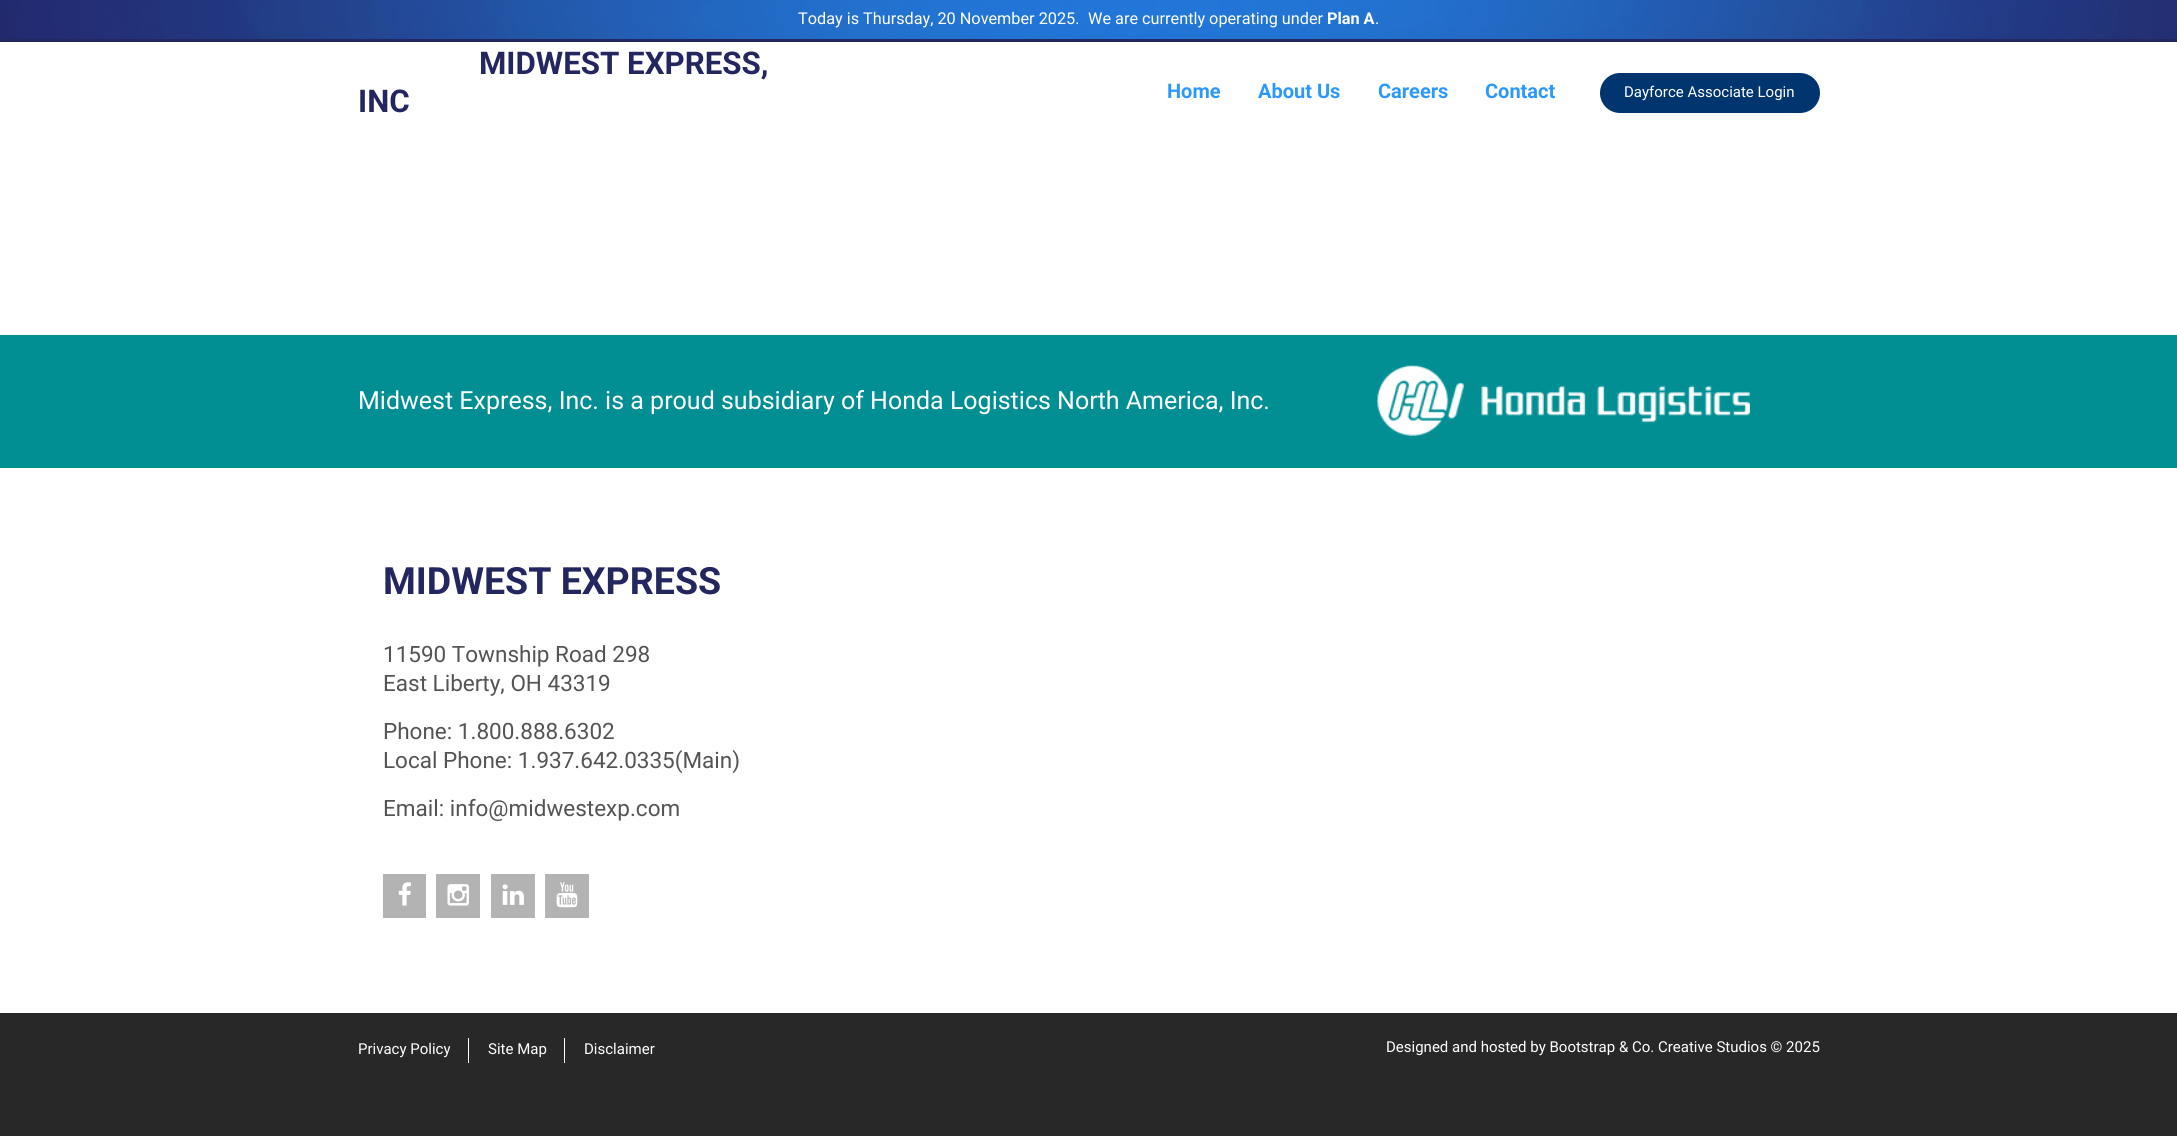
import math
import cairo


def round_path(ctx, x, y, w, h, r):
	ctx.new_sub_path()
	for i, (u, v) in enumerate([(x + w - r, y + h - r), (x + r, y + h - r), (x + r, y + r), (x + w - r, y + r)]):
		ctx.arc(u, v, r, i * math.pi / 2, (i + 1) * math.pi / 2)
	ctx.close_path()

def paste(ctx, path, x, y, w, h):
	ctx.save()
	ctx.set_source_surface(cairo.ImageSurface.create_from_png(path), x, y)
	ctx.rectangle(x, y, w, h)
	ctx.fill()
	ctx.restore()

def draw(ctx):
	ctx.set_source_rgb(1, 1, 1)
	ctx.paint()
	paste(ctx, 'media/1.png', 0, 0, 2177, 39)
	ctx.select_font_face('Roboto')
	ctx.set_font_size(16.25)
	ctx.set_source_rgb(1, 1, 1)
	ctx.move_to(798, 24)
	ctx.show_text('Today is Thursday, 20 November 2025.')
	ctx.move_to(1088, 24)
	ctx.show_text('We are currently operating under')
	ctx.select_font_face('Roboto', cairo.FONT_SLANT_NORMAL, cairo.FONT_WEIGHT_BOLD)
	ctx.move_to(1327, 24)
	ctx.show_text('Plan A')
	ctx.select_font_face('Roboto')
	ctx.move_to(1375, 24)
	ctx.show_text('.')
	ctx.set_source_rgb(0.141, 0.157, 0.376)
	ctx.rectangle(0, 39, 2177, 3)
	ctx.fill()
	ctx.select_font_face('Roboto', cairo.FONT_SLANT_NORMAL, cairo.FONT_WEIGHT_BOLD)
	ctx.set_font_size(31.25)
	ctx.set_source_rgb(0.137, 0.149, 0.373)
	ctx.move_to(479, 74)
	ctx.show_text('MIDWEST EXPRESS,')
	ctx.move_to(358, 112)
	ctx.show_text('INC')
	ctx.set_font_size(20)
	ctx.set_source_rgb(0.173, 0.596, 1)
	for x, y, s in [
		(1167, 98, 'Home'),
		(1258, 98, 'About Us'),
		(1378, 98, 'Careers'),
		(1485, 98, 'Contact'),
	]:
		ctx.move_to(x, y)
		ctx.show_text(s)
	ctx.set_source_rgb(0, 0.208, 0.435)
	round_path(ctx, 1600, 73, 220, 40, 20)
	ctx.fill()
	ctx.select_font_face('Roboto')
	ctx.set_font_size(15)
	ctx.set_source_rgb(1, 1, 1)
	ctx.move_to(1624, 97)
	ctx.show_text('Dayforce Associate Login')
	ctx.set_source_rgb(0.004, 0.561, 0.58)
	ctx.rectangle(0, 335, 2177, 133)
	ctx.fill()
	ctx.set_font_size(25)
	ctx.set_source_rgb(1, 1, 1)
	ctx.move_to(358, 409)
	ctx.show_text('Midwest Express, Inc. is a proud subsidiary of Honda Logistics North America, Inc.')
	paste(ctx, 'media/2.png', 1377, 365, 373, 71)
	ctx.select_font_face('Roboto', cairo.FONT_SLANT_NORMAL, cairo.FONT_WEIGHT_BOLD)
	ctx.set_font_size(37.5)
	ctx.set_source_rgb(0.137, 0.149, 0.373)
	ctx.move_to(383, 594)
	ctx.show_text('MIDWEST EXPRESS')
	ctx.select_font_face('Roboto')
	ctx.set_font_size(22.5)
	ctx.set_source_rgb(0.329, 0.329, 0.329)
	for x, y, s in [
		(383, 662, '11590 Township Road 298'),
		(383, 691, 'East Liberty, OH 43319'),
		(383, 739, 'Phone: 1.800.888.6302'),
		(383, 768, 'Local Phone: 1.937.642.0335(Main)'),
		(383, 816, 'Email: info@midwestexp.com'),
	]:
		ctx.move_to(x, y)
		ctx.show_text(s)
	ctx.set_source_rgb(0.702, 0.702, 0.702)
	ctx.rectangle(383, 874, 43, 44)
	ctx.fill()
	paste(ctx, 'media/3.png', 398, 882, 13, 24)
	ctx.rectangle(436, 874, 44, 44)
	ctx.fill()
	paste(ctx, 'media/4.png', 447, 884, 22, 22)
	ctx.rectangle(491, 874, 44, 44)
	ctx.fill()
	paste(ctx, 'media/5.png', 502, 884, 22, 21)
	ctx.rectangle(545, 874, 44, 44)
	ctx.fill()
	paste(ctx, 'media/6.png', 556, 882, 22, 26)
	ctx.set_source_rgb(0.157, 0.157, 0.157)
	ctx.rectangle(0, 1013, 2177, 123)
	ctx.fill()
	ctx.set_font_size(15)
	ctx.set_source_rgb(1, 1, 1)
	ctx.move_to(358, 1054)
	ctx.show_text('Privacy Policy')
	ctx.rectangle(468, 1038, 1, 25)
	ctx.fill()
	ctx.move_to(488, 1054)
	ctx.show_text('Site Map')
	ctx.rectangle(564, 1038, 1, 25)
	ctx.fill()
	ctx.move_to(584, 1054)
	ctx.show_text('Disclaimer')
	ctx.move_to(1386, 1052)
	ctx.show_text('Designed and hosted by Bootstrap & Co. Creative Studios © 2025')


surface = cairo.ImageSurface(cairo.FORMAT_RGB24, 2177, 1136)
ctx = cairo.Context(surface)
options = cairo.FontOptions()
options.set_hint_metrics(cairo.HINT_METRICS_OFF)
options.set_hint_style(cairo.HINT_STYLE_NONE)
ctx.set_font_options(options)
ctx.set_miter_limit(4)
draw(ctx)
surface.write_to_png('image.png')
